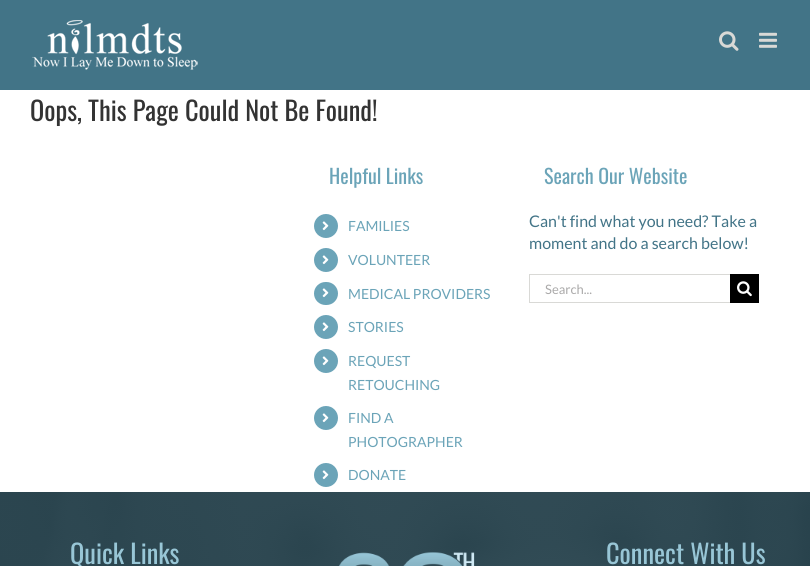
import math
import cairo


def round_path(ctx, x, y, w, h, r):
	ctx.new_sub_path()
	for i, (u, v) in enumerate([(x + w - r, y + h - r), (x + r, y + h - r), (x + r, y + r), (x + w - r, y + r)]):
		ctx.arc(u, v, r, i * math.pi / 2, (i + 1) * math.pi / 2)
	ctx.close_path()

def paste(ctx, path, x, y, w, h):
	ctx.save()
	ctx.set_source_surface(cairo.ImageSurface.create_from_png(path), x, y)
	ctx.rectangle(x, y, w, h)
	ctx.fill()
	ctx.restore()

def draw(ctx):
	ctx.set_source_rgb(1, 1, 1)
	ctx.paint()
	ctx.set_source_rgb(0.259, 0.455, 0.529)
	ctx.rectangle(0, 0, 810, 90)
	ctx.fill()
	paste(ctx, 'media/1.png', 32, 20, 166, 50)
	paste(ctx, 'media/2.png', 719, 31, 20, 20)
	paste(ctx, 'media/3.png', 759, 32, 18, 16)
	ctx.select_font_face('Oswald')
	ctx.set_font_size(26.4)
	ctx.set_source_rgb(0.2, 0.2, 0.2)
	ctx.move_to(30, 121)
	ctx.show_text('Oops, This Page Could Not Be Found!')
	ctx.set_font_size(20)
	ctx.set_source_rgb(0.42, 0.643, 0.722)
	ctx.move_to(329, 184)
	ctx.show_text('Helpful Links')
	ctx.new_path()
	ctx.arc(326, 226, 12, 0, 2 * math.pi)
	ctx.fill()
	paste(ctx, 'media/4.png', 322, 221, 7, 10)
	ctx.select_font_face('Lato')
	ctx.set_font_size(14)
	ctx.move_to(348, 231)
	ctx.show_text('FAMILIES')
	ctx.new_path()
	ctx.arc(326, 260, 12, 0, 2 * math.pi)
	ctx.fill()
	paste(ctx, 'media/4.png', 322, 255, 7, 10)
	ctx.move_to(348, 265)
	ctx.show_text('VOLUNTEER')
	round_path(ctx, 314, 282, 24, 23, 11.5)
	ctx.fill()
	paste(ctx, 'media/4.png', 322, 288, 7, 10)
	ctx.move_to(348, 299)
	ctx.show_text('MEDICAL PROVIDERS')
	ctx.new_path()
	ctx.arc(326, 327, 12, 0, 2 * math.pi)
	ctx.fill()
	paste(ctx, 'media/4.png', 322, 322, 7, 10)
	ctx.move_to(348, 332)
	ctx.show_text('STORIES')
	ctx.new_path()
	ctx.arc(326, 361, 12, 0, 2 * math.pi)
	ctx.fill()
	paste(ctx, 'media/4.png', 322, 356, 7, 10)
	ctx.move_to(348, 366)
	ctx.show_text('REQUEST')
	ctx.move_to(348, 390)
	ctx.show_text('RETOUCHING')
	ctx.new_path()
	ctx.arc(326, 418, 12, 0, 2 * math.pi)
	ctx.fill()
	paste(ctx, 'media/4.png', 322, 413, 7, 10)
	ctx.move_to(348, 423)
	ctx.show_text('FIND A')
	ctx.move_to(348, 447)
	ctx.show_text('PHOTOGRAPHER')
	ctx.new_path()
	ctx.arc(326, 475, 12, 0, 2 * math.pi)
	ctx.fill()
	paste(ctx, 'media/4.png', 322, 470, 7, 10)
	ctx.move_to(348, 480)
	ctx.show_text('DONATE')
	ctx.select_font_face('Oswald')
	ctx.set_font_size(20)
	ctx.move_to(544, 184)
	ctx.show_text('Search Our Website')
	ctx.select_font_face('Lato')
	ctx.set_font_size(16)
	ctx.set_source_rgb(0.259, 0.455, 0.529)
	ctx.move_to(529, 227)
	ctx.show_text('Can\'t find what you need? Take a')
	ctx.move_to(529, 249)
	ctx.show_text('moment and do a search below!')
	ctx.set_source_rgb(0.851, 0.851, 0.839)
	ctx.rectangle(529, 274, 201, 1)
	ctx.rectangle(529, 302, 201, 1)
	ctx.rectangle(529, 274, 1, 29)
	ctx.fill()
	ctx.set_font_size(13)
	ctx.set_source_rgb(0.667, 0.663, 0.663)
	ctx.move_to(545, 294)
	ctx.show_text('Search...')
	ctx.set_source_rgb(0, 0, 0)
	ctx.rectangle(730, 274, 29, 29)
	ctx.fill()
	paste(ctx, 'media/5.png', 737, 281, 15, 16)
	paste(ctx, 'media/6.png', 0, 492, 810, 74)
	ctx.select_font_face('Oswald')
	ctx.set_font_size(26.4)
	ctx.set_source_rgb(0.596, 0.776, 0.839)
	ctx.move_to(70, 564)
	ctx.show_text('Quick Links')
	paste(ctx, 'media/7.png', 339, 552, 136, 14)
	ctx.move_to(606, 564)
	ctx.show_text('Connect With Us')


surface = cairo.ImageSurface(cairo.FORMAT_RGB24, 810, 566)
ctx = cairo.Context(surface)
options = cairo.FontOptions()
options.set_hint_metrics(cairo.HINT_METRICS_OFF)
options.set_hint_style(cairo.HINT_STYLE_NONE)
ctx.set_font_options(options)
ctx.set_miter_limit(4)
draw(ctx)
surface.write_to_png('image.png')
